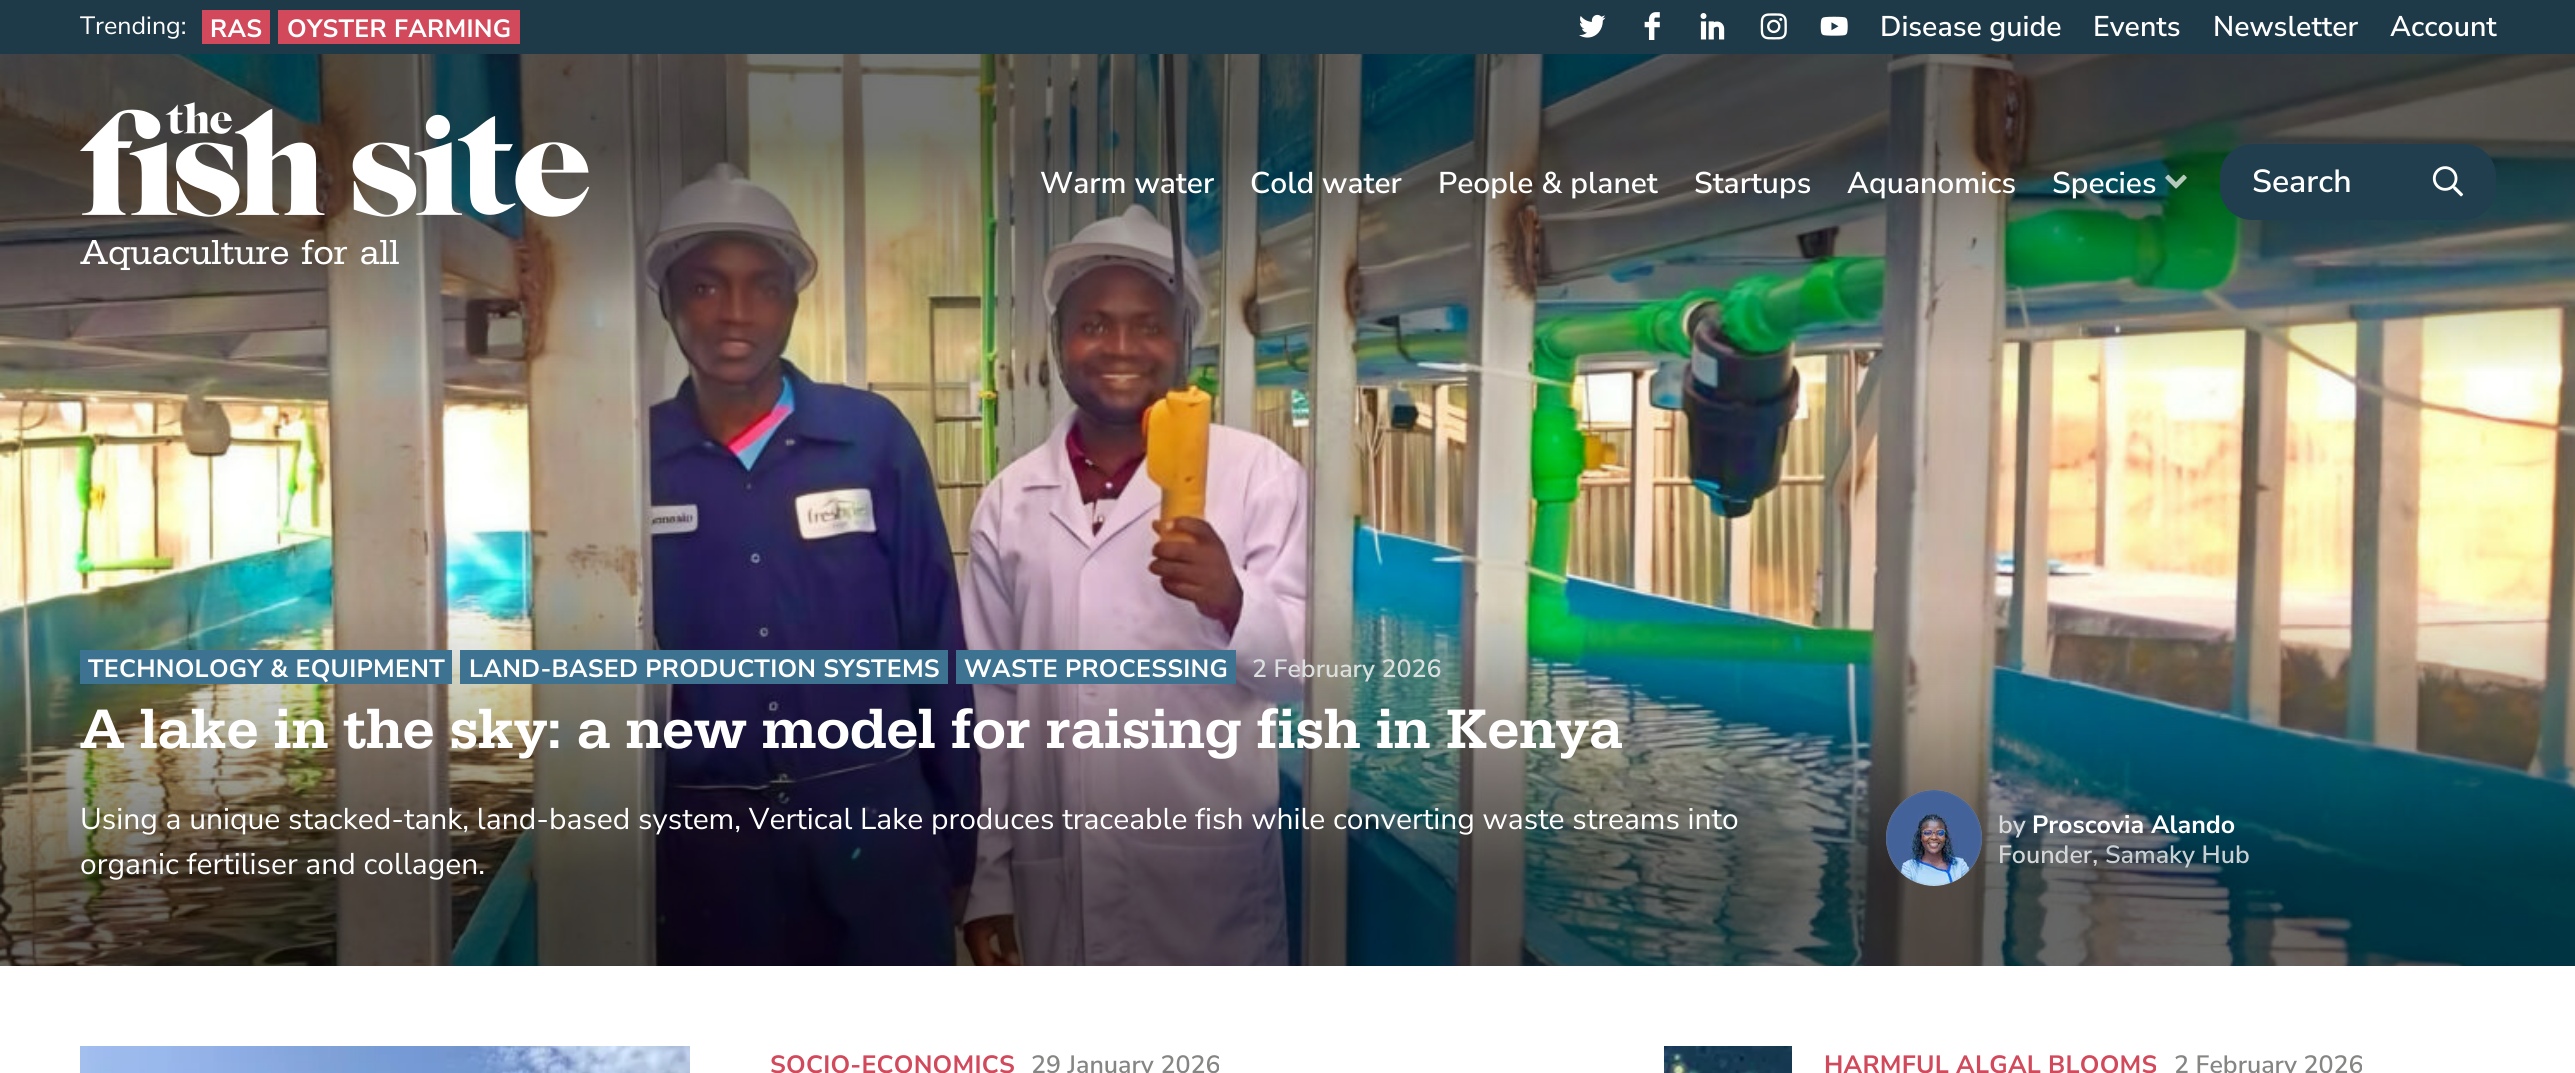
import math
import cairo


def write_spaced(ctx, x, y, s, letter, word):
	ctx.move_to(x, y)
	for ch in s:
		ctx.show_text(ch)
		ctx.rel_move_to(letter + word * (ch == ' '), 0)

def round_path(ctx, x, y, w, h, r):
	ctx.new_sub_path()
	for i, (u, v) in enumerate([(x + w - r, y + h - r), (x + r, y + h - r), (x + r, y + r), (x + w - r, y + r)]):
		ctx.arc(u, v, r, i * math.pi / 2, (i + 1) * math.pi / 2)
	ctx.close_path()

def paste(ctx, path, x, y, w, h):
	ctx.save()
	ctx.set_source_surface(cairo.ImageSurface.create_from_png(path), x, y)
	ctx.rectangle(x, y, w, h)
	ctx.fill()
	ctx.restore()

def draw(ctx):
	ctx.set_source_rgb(1, 1, 1)
	ctx.paint()
	ctx.set_source_rgb(0.118, 0.224, 0.282)
	ctx.rectangle(0, 0, 2575, 54)
	ctx.fill()
	ctx.select_font_face('Nunito Sans')
	ctx.set_font_size(25)
	ctx.set_source_rgb(1, 1, 1)
	ctx.move_to(80, 34)
	ctx.show_text('Trending:')
	ctx.set_source_rgb(0.82, 0.286, 0.357)
	ctx.rectangle(202, 10, 68, 34)
	ctx.fill()
	ctx.select_font_face('Nunito Sans', cairo.FONT_SLANT_NORMAL, cairo.FONT_WEIGHT_BOLD)
	ctx.set_source_rgb(1, 1, 1)
	write_spaced(ctx, 210, 37, 'RAS', 0.25, 0)
	ctx.set_source_rgb(0.82, 0.286, 0.357)
	ctx.rectangle(278, 10, 242, 34)
	ctx.fill()
	ctx.set_source_rgb(1, 1, 1)
	write_spaced(ctx, 287, 37, 'OYSTER FARMING', 0.25, 0)
	paste(ctx, 'media/1.png', 1579, 14, 27, 24)
	paste(ctx, 'media/2.png', 1644, 12, 16, 28)
	paste(ctx, 'media/3.png', 1700, 13, 25, 27)
	paste(ctx, 'media/4.png', 1760, 13, 27, 27)
	paste(ctx, 'media/5.png', 1820, 16, 28, 20)
	ctx.select_font_face('Nunito Sans SemiBold')
	ctx.set_font_size(28.5)
	for x, y, s in [
		(1880, 36, 'Disease guide'),
		(2093, 36, 'Events'),
		(2213, 36, 'Newsletter'),
		(2390, 36, 'Account'),
	]:
		ctx.move_to(x, y)
		ctx.show_text(s)
	paste(ctx, 'media/9.png', 0, 54, 2575, 912)
	paste(ctx, 'media/6.png', 80, 102, 510, 115)
	ctx.set_font_size(30)
	for x, y, s in [
		(1040, 193, 'Warm water'),
		(1250, 193, 'Cold water'),
		(1438, 193, 'People & planet'),
		(1694, 193, 'Startups'),
		(1847, 193, 'Aquanomics'),
		(2052, 193, 'Species'),
	]:
		ctx.move_to(x, y)
		ctx.show_text(s)
	paste(ctx, 'media/7.png', 2165, 174, 22, 15)
	ctx.set_source_rgb(0.129, 0.243, 0.306)
	round_path(ctx, 2220, 144, 276, 76, 32)
	ctx.fill()
	ctx.set_font_size(32)
	ctx.set_source_rgb(1, 1, 1)
	ctx.move_to(2252, 192)
	ctx.show_text('Search')
	paste(ctx, 'media/8.png', 2432, 166, 32, 31)
	ctx.select_font_face('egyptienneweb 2')
	ctx.set_font_size(36)
	ctx.move_to(80, 264)
	ctx.show_text('Aquaculture for all')
	ctx.set_source_rgb(0.239, 0.451, 0.569)
	ctx.rectangle(80, 650, 372, 34)
	ctx.fill()
	ctx.select_font_face('Nunito Sans', cairo.FONT_SLANT_NORMAL, cairo.FONT_WEIGHT_BOLD)
	ctx.set_font_size(25)
	ctx.set_source_rgb(1, 1, 1)
	write_spaced(ctx, 88, 677, 'TECHNOLOGY & EQUIPMENT', 0.25, 0)
	ctx.set_source_rgb(0.239, 0.451, 0.569)
	ctx.rectangle(460, 650, 488, 34)
	ctx.fill()
	ctx.set_source_rgb(1, 1, 1)
	write_spaced(ctx, 469, 677, 'LAND-BASED PRODUCTION SYSTEMS', 0.25, 0)
	ctx.set_source_rgb(0.239, 0.451, 0.569)
	ctx.rectangle(956, 650, 280, 34)
	ctx.fill()
	ctx.set_source_rgb(1, 1, 1)
	write_spaced(ctx, 964, 677, 'WASTE PROCESSING', 0.25, 0)
	ctx.select_font_face('Nunito Sans SemiBold')
	ctx.set_source_rgb(0.859, 0.878, 0.875)
	ctx.move_to(1252, 677)
	ctx.show_text('2 February 2026')
	ctx.save()
	ctx.rectangle(80, 696, 1542, 68)
	ctx.clip()
	ctx.select_font_face('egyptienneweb')
	ctx.set_font_size(57.65)
	ctx.set_source_rgb(1, 1, 1)
	ctx.move_to(80, 748)
	ctx.show_text('A lake in the sky: a new model for raising fish in Kenya')
	ctx.restore()
	ctx.select_font_face('Nunito Sans')
	ctx.set_font_size(30)
	ctx.set_source_rgb(1, 1, 1)
	ctx.move_to(80, 829)
	ctx.show_text('Using a unique stacked-tank, land-based system, Vertical Lake produces traceable fish while converting waste streams into')
	ctx.move_to(80, 874)
	ctx.show_text('organic fertiliser and collagen.')
	ctx.set_source_rgb(0.522, 0.522, 0.518)
	ctx.new_path()
	ctx.arc(1934, 838, 48, 0, 2 * math.pi)
	ctx.fill()
	paste(ctx, 'media/10.png', 1886, 790, 96, 96)
	ctx.arc(1934, 838, 47, 0, 2 * math.pi)
	ctx.set_source_rgba(0.522, 0.522, 0.518, 0.1)
	ctx.stroke()
	ctx.select_font_face('Nunito Sans SemiBold')
	ctx.set_font_size(25)
	ctx.set_source_rgb(0.843, 0.855, 0.863)
	ctx.move_to(1998, 833)
	ctx.show_text('by')
	ctx.select_font_face('Nunito Sans', cairo.FONT_SLANT_NORMAL, cairo.FONT_WEIGHT_BOLD)
	ctx.set_source_rgb(1, 1, 1)
	ctx.move_to(2032, 833)
	ctx.show_text('Proscovia Alando')
	ctx.select_font_face('Nunito Sans SemiBold')
	ctx.set_source_rgb(0.827, 0.835, 0.839)
	ctx.move_to(1998, 863)
	ctx.show_text('Founder,')
	ctx.set_source_rgb(0.78, 0.812, 0.824)
	ctx.move_to(2105, 863)
	ctx.show_text('Samaky Hub')
	paste(ctx, 'media/11.png', 80, 1046, 610, 27)
	ctx.select_font_face('Nunito Sans', cairo.FONT_SLANT_NORMAL, cairo.FONT_WEIGHT_BOLD)
	ctx.set_source_rgb(0.82, 0.286, 0.357)
	write_spaced(ctx, 770, 1073, 'SOCIO-ECONOMICS', 0.25, 0)
	ctx.select_font_face('Nunito Sans SemiBold')
	ctx.set_source_rgb(0.522, 0.522, 0.518)
	ctx.move_to(1031, 1073)
	ctx.show_text('29 January 2026')
	paste(ctx, 'media/12.png', 1664, 1046, 128, 27)
	ctx.select_font_face('Nunito Sans', cairo.FONT_SLANT_NORMAL, cairo.FONT_WEIGHT_BOLD)
	ctx.set_source_rgb(0.82, 0.286, 0.357)
	write_spaced(ctx, 1824, 1073, 'HARMFUL ALGAL BLOOMS', 0.25, 0)
	ctx.select_font_face('Nunito Sans SemiBold')
	ctx.set_source_rgb(0.522, 0.522, 0.518)
	ctx.move_to(2174, 1073)
	ctx.show_text('2 February 2026')


surface = cairo.ImageSurface(cairo.FORMAT_RGB24, 2575, 1073)
ctx = cairo.Context(surface)
options = cairo.FontOptions()
options.set_hint_metrics(cairo.HINT_METRICS_OFF)
options.set_hint_style(cairo.HINT_STYLE_NONE)
ctx.set_font_options(options)
ctx.set_miter_limit(4)
draw(ctx)
surface.write_to_png('image.png')
